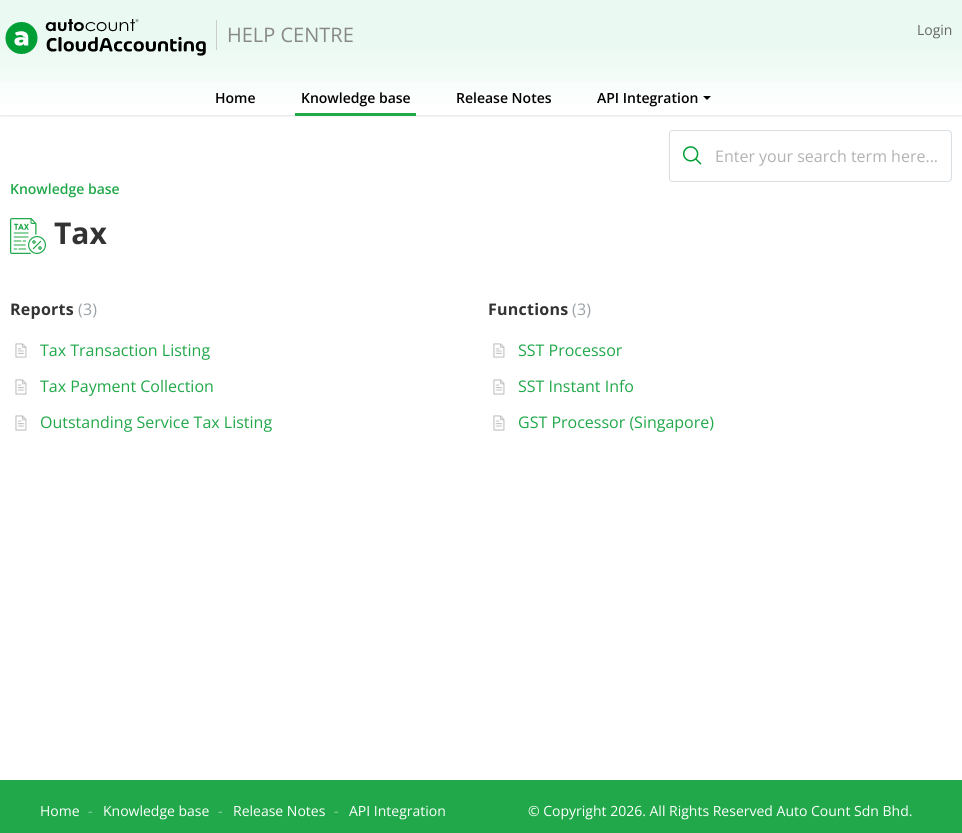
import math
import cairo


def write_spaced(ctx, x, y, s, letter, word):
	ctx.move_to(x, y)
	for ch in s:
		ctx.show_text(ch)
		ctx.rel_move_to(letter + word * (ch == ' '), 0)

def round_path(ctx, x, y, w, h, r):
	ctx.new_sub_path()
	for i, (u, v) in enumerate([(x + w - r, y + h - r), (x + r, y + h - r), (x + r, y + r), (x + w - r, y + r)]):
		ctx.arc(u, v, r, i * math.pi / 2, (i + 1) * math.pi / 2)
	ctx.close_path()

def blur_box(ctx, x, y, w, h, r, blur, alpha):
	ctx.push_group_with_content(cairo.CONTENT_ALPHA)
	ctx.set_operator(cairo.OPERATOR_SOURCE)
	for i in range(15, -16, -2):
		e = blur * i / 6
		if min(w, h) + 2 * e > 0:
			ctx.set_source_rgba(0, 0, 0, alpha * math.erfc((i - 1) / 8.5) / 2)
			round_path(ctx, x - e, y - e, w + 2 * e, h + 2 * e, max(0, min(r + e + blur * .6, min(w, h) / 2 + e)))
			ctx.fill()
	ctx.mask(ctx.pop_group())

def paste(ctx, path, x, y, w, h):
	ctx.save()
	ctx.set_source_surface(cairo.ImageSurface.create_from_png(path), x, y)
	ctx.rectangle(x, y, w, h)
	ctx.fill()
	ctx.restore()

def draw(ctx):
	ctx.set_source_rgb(1, 1, 1)
	ctx.paint()
	gradient = cairo.LinearGradient(481, -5, 481, 115)
	gradient.add_color_stop_rgba(0, 0.918, 0.976, 0.945, 1)
	gradient.add_color_stop_rgba(0.4, 0.918, 0.976, 0.945, 1)
	gradient.add_color_stop_rgba(1, 1, 1, 1, 1)
	ctx.set_source(gradient)
	ctx.rectangle(0, 0, 962, 82)
	ctx.fill()
	gradient = cairo.LinearGradient(481, -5, 481, 115)
	gradient.add_color_stop_rgba(0, 0.941, 0.984, 0.961, 1)
	gradient.add_color_stop_rgba(0.4, 0.941, 0.984, 0.961, 1)
	gradient.add_color_stop_rgba(1, 1, 1, 1, 1)
	ctx.set_source(gradient)
	ctx.rectangle(0, 82, 962, 21)
	ctx.fill()
	paste(ctx, 'media/1.png', 5, 19, 201, 37)
	ctx.set_source_rgb(0.8, 0.8, 0.8)
	ctx.rectangle(216, 20, 1, 30)
	ctx.fill()
	ctx.select_font_face('Open Sans')
	ctx.set_font_size(20)
	ctx.set_source_rgb(0.533, 0.533, 0.533)
	ctx.move_to(227, 42)
	ctx.show_text('HELP CENTRE')
	ctx.set_font_size(14)
	ctx.set_source_rgb(0.4, 0.4, 0.4)
	ctx.move_to(917, 35)
	ctx.show_text('Login')
	ctx.save()
	ctx.rectangle(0, 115, 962, 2)
	ctx.clip()
	ctx.set_source_rgb(0.247, 0.247, 0.267)
	blur_box(ctx, 0, 83, 962, 33, 0, 1, 0.15)
	ctx.restore()
	ctx.select_font_face('Open Sans SemiBold')
	ctx.set_source_rgb(0, 0, 0)
	ctx.move_to(215, 103)
	ctx.show_text('Home')
	ctx.move_to(301, 103)
	ctx.show_text('Knowledge base')
	ctx.set_source_rgb(0.129, 0.659, 0.29)
	ctx.rectangle(295, 113, 121, 3)
	ctx.fill()
	ctx.set_source_rgb(0, 0, 0)
	ctx.move_to(456, 103)
	ctx.show_text('Release Notes')
	ctx.move_to(597, 103)
	ctx.show_text('API Integration')
	ctx.new_path()
	ctx.move_to(703, 96)
	ctx.line_to(711, 96)
	ctx.line_to(707, 100)
	ctx.close_path()
	ctx.fill()
	round_path(ctx, 669.5, 130.5, 282, 51, 3.5)
	ctx.set_source_rgb(0.855, 0.875, 0.89)
	ctx.set_line_width(1)
	ctx.stroke()
	paste(ctx, 'media/2.png', 683, 146, 19, 19)
	ctx.select_font_face('Open Sans')
	ctx.set_font_size(16)
	ctx.set_source_rgb(0.698, 0.698, 0.698)
	ctx.move_to(715, 162)
	ctx.show_text('Enter your search term here...')
	ctx.select_font_face('Open Sans SemiBold')
	ctx.set_font_size(14)
	ctx.set_source_rgb(0.129, 0.659, 0.29)
	ctx.move_to(10, 194)
	ctx.show_text('Knowledge base')
	paste(ctx, 'media/3.png', 10, 218, 36, 36)
	ctx.select_font_face('Open Sans', cairo.FONT_SLANT_NORMAL, cairo.FONT_WEIGHT_BOLD)
	ctx.set_font_size(30)
	ctx.set_source_rgb(0.2, 0.2, 0.2)
	ctx.move_to(54, 244)
	ctx.show_text('Tax')
	ctx.set_font_size(16)
	write_spaced(ctx, 10, 315, 'Reports', 0.25, 0)
	ctx.select_font_face('Open Sans')
	ctx.set_source_rgb(0.604, 0.631, 0.651)
	write_spaced(ctx, 78, 315, '(3)', 0.25, 0)
	paste(ctx, 'media/4.png', 15, 343, 12, 15)
	ctx.set_source_rgb(0.129, 0.659, 0.29)
	ctx.move_to(40, 356)
	ctx.show_text('Tax Transaction Listing')
	paste(ctx, 'media/5.png', 15, 379, 12, 16)
	ctx.move_to(40, 392)
	ctx.show_text('Tax Payment Collection')
	paste(ctx, 'media/5.png', 15, 415, 12, 16)
	ctx.move_to(40, 428)
	ctx.show_text('Outstanding Service Tax Listing')
	ctx.select_font_face('Open Sans', cairo.FONT_SLANT_NORMAL, cairo.FONT_WEIGHT_BOLD)
	ctx.set_source_rgb(0.2, 0.2, 0.2)
	write_spaced(ctx, 488, 315, 'Functions', 0.25, 0)
	ctx.select_font_face('Open Sans')
	ctx.set_source_rgb(0.604, 0.631, 0.651)
	write_spaced(ctx, 572, 315, '(3)', 0.25, 0)
	paste(ctx, 'media/6.png', 493, 343, 12, 15)
	ctx.set_source_rgb(0.129, 0.659, 0.29)
	ctx.move_to(518, 356)
	ctx.show_text('SST Processor')
	paste(ctx, 'media/7.png', 493, 379, 12, 16)
	ctx.move_to(518, 392)
	ctx.show_text('SST Instant Info')
	paste(ctx, 'media/7.png', 493, 415, 12, 16)
	ctx.move_to(518, 428)
	ctx.show_text('GST Processor (Singapore)')
	ctx.rectangle(0, 780, 962, 53)
	ctx.fill()
	ctx.set_font_size(14)
	ctx.set_source_rgb(1, 1, 1)
	ctx.move_to(40, 816)
	ctx.show_text('Home')
	ctx.set_source_rgb(0.565, 0.831, 0.647)
	ctx.move_to(88, 816)
	ctx.show_text('-')
	ctx.set_source_rgb(1, 1, 1)
	ctx.move_to(103, 816)
	ctx.show_text('Knowledge base')
	ctx.set_source_rgb(0.565, 0.831, 0.647)
	ctx.move_to(218, 816)
	ctx.show_text('-')
	ctx.set_source_rgb(1, 1, 1)
	ctx.move_to(233, 816)
	ctx.show_text('Release Notes')
	ctx.set_source_rgb(0.565, 0.831, 0.647)
	ctx.move_to(334, 816)
	ctx.show_text('-')
	ctx.set_source_rgb(1, 1, 1)
	ctx.move_to(349, 816)
	ctx.show_text('API Integration')
	ctx.move_to(528, 816)
	ctx.show_text('© Copyright 2026. All Rights Reserved Auto Count Sdn Bhd.')


surface = cairo.ImageSurface(cairo.FORMAT_RGB24, 962, 833)
ctx = cairo.Context(surface)
options = cairo.FontOptions()
options.set_hint_metrics(cairo.HINT_METRICS_OFF)
options.set_hint_style(cairo.HINT_STYLE_NONE)
ctx.set_font_options(options)
ctx.set_miter_limit(4)
draw(ctx)
surface.write_to_png('image.png')
